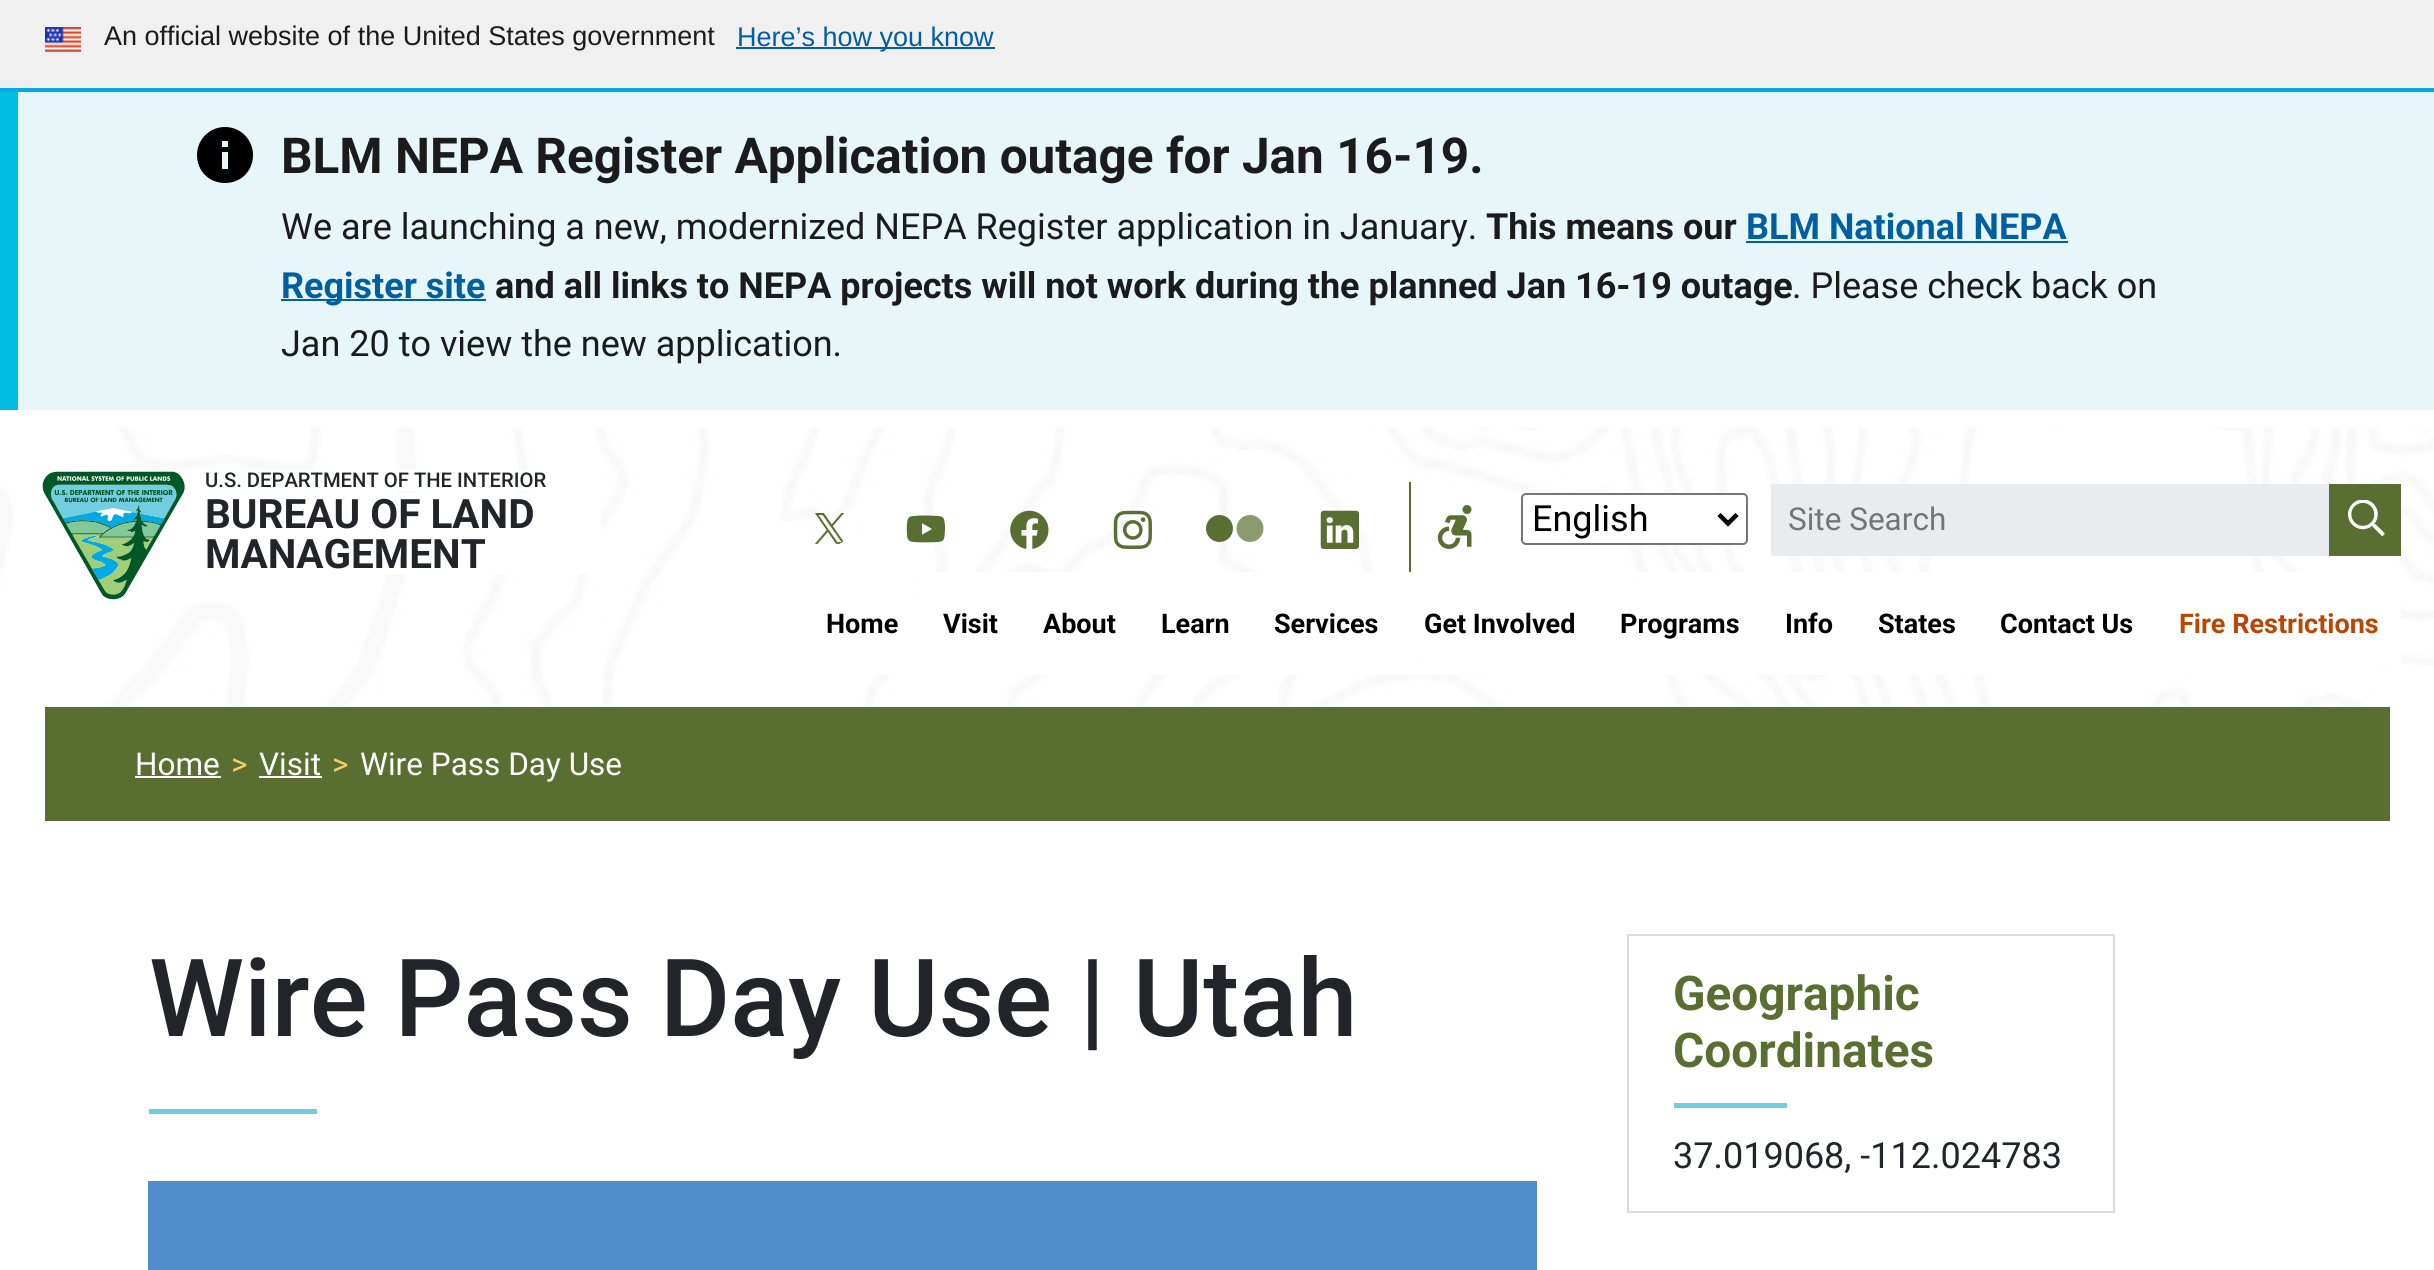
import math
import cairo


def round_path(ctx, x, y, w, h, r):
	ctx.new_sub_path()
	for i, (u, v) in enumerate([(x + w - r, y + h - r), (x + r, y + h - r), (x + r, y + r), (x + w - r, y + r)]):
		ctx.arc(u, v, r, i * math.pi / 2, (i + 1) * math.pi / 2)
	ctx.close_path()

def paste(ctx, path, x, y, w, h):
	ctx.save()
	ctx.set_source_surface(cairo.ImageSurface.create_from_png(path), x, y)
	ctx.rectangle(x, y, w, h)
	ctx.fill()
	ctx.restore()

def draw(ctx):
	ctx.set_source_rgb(1, 1, 1)
	ctx.paint()
	ctx.set_source_rgb(0.941, 0.941, 0.941)
	ctx.rectangle(0, 0, 2434, 88)
	ctx.fill()
	ctx.set_source_rgb(0, 0.667, 0.898)
	ctx.rectangle(0, 88, 2434, 4)
	ctx.fill()
	paste(ctx, 'media/1.png', 45, 27, 36, 25)
	ctx.select_font_face('Liberation Sans')
	ctx.set_font_size(27)
	ctx.set_source_rgb(0.106, 0.106, 0.106)
	ctx.move_to(104, 45)
	ctx.show_text('An official website of the United States government')
	ctx.set_source_rgb(0, 0.369, 0.635)
	ctx.rectangle(736, 47, 259, 2)
	ctx.fill()
	ctx.move_to(737, 46)
	ctx.show_text('Here’s how you know')
	ctx.set_source_rgb(0.906, 0.965, 0.973)
	ctx.rectangle(18, 92, 2416, 318)
	ctx.fill()
	ctx.set_source_rgb(0, 0.741, 0.89)
	ctx.rectangle(0, 92, 18, 318)
	ctx.fill()
	ctx.set_source_rgb(0, 0, 0)
	ctx.new_path()
	ctx.move_to(225, 127)
	ctx.curve_to(209, 127, 197, 140, 197, 155)
	ctx.curve_to(197, 171, 209, 183, 225, 183)
	ctx.curve_to(241, 183, 253, 171, 253, 155)
	ctx.curve_to(253, 140, 241, 127, 225, 127)
	ctx.close_path()
	ctx.move_to(228, 169)
	ctx.line_to(222, 169)
	ctx.line_to(222, 152)
	ctx.line_to(228, 152)
	ctx.close_path()
	ctx.move_to(228, 147)
	ctx.line_to(222, 147)
	ctx.line_to(222, 141)
	ctx.line_to(228, 141)
	ctx.close_path()
	ctx.fill()
	ctx.select_font_face('Roboto', cairo.FONT_SLANT_NORMAL, cairo.FONT_WEIGHT_BOLD)
	ctx.set_font_size(49.5)
	ctx.set_source_rgb(0.106, 0.106, 0.106)
	ctx.move_to(281, 173)
	ctx.show_text('BLM NEPA Register Application outage for Jan 16-19.')
	ctx.select_font_face('Roboto')
	ctx.set_font_size(36)
	ctx.move_to(281, 239)
	ctx.show_text('We are launching a new, modernized NEPA Register application in January.')
	ctx.select_font_face('Roboto', cairo.FONT_SLANT_NORMAL, cairo.FONT_WEIGHT_BOLD)
	ctx.move_to(1486, 239)
	ctx.show_text('This means our')
	ctx.set_source_rgb(0, 0.369, 0.635)
	ctx.move_to(1746, 239)
	ctx.show_text('BLM National NEPA')
	ctx.rectangle(1746, 241, 322, 2)
	ctx.fill()
	ctx.rectangle(281, 299, 205, 2)
	ctx.fill()
	ctx.move_to(281, 298)
	ctx.show_text('Register site')
	ctx.set_source_rgb(0.106, 0.106, 0.106)
	ctx.move_to(495, 298)
	ctx.show_text('and all links to NEPA projects will not work during the planned Jan 16-19 outage')
	ctx.select_font_face('Roboto')
	ctx.move_to(1792, 298)
	ctx.show_text('. Please check back on')
	ctx.move_to(281, 356)
	ctx.show_text('Jan 20 to view the new application.')
	paste(ctx, 'media/2.png', 0, 427, 2434, 279)
	paste(ctx, 'media/3.png', 42, 471, 143, 129)
	ctx.set_source_rgb(1, 1, 1)
	ctx.rectangle(264, 470, 265, 21)
	ctx.fill()
	ctx.select_font_face('Roboto Medium')
	ctx.set_font_size(20.25)
	ctx.set_source_rgb(0.129, 0.145, 0.161)
	ctx.move_to(205, 487)
	ctx.show_text('U.S. DEPARTMENT OF THE INTERIOR')
	ctx.set_source_rgb(1, 1, 1)
	ctx.rectangle(387, 493, 214, 81)
	ctx.fill()
	ctx.select_font_face('Roboto', cairo.FONT_SLANT_NORMAL, cairo.FONT_WEIGHT_BOLD)
	ctx.set_font_size(40.5)
	ctx.set_source_rgb(0.129, 0.145, 0.161)
	ctx.move_to(205, 528)
	ctx.show_text('BUREAU OF LAND')
	ctx.move_to(205, 568)
	ctx.show_text('MANAGEMENT')
	paste(ctx, 'media/4.png', 815, 513, 29, 31)
	paste(ctx, 'media/5.png', 906, 515, 39, 28)
	paste(ctx, 'media/6.png', 1010, 510, 39, 39)
	paste(ctx, 'media/7.png', 1113, 510, 39, 39)
	ctx.set_source_rgb(0.349, 0.435, 0.192)
	ctx.arc(1219.5, 528.5, 13.5, 0, 2 * math.pi)
	ctx.fill()
	ctx.set_source_rgb(0.545, 0.604, 0.435)
	ctx.arc(1250, 528.5, 13.5, 0, 2 * math.pi)
	ctx.fill()
	paste(ctx, 'media/8.png', 1320, 510, 39, 39)
	ctx.set_source_rgb(0.349, 0.435, 0.192)
	ctx.rectangle(1409, 482, 2, 90)
	ctx.fill()
	paste(ctx, 'media/9.png', 1437, 505, 35, 44)
	ctx.set_source_rgb(1, 1, 1)
	round_path(ctx, 1522, 494, 225, 50, 4)
	ctx.fill_preserve()
	ctx.set_source_rgb(0.463, 0.463, 0.463)
	ctx.stroke()
	ctx.new_path()
	ctx.move_to(1719, 514.5)
	ctx.line_to(1728, 523.5)
	ctx.line_to(1737, 514.5)
	ctx.set_source_rgb(0, 0, 0)
	ctx.set_line_width(4.5)
	ctx.stroke()
	ctx.select_font_face('Roboto')
	ctx.set_font_size(36)
	ctx.move_to(1532, 531)
	ctx.show_text('English')
	ctx.set_source_rgb(0.914, 0.925, 0.937)
	ctx.rectangle(1771, 484, 558, 72)
	ctx.fill()
	ctx.set_font_size(31.5)
	ctx.set_source_rgb(0.459, 0.459, 0.459)
	ctx.move_to(1788, 530)
	ctx.show_text('Site Search')
	ctx.set_source_rgb(0.349, 0.435, 0.192)
	ctx.rectangle(2329, 484, 72, 72)
	ctx.fill()
	paste(ctx, 'media/10.png', 2348, 500, 37, 36)
	ctx.set_source_rgb(1, 1, 1)
	ctx.rectangle(876, 598, 44, 77)
	ctx.fill()
	ctx.select_font_face('Roboto', cairo.FONT_SLANT_NORMAL, cairo.FONT_WEIGHT_BOLD)
	ctx.set_font_size(27)
	ctx.set_source_rgb(0, 0, 0)
	ctx.move_to(826, 633)
	ctx.show_text('Home')
	ctx.set_source_rgb(1, 1, 1)
	ctx.rectangle(920, 572, 99, 51)
	ctx.fill()
	ctx.set_source_rgb(0, 0, 0)
	ctx.move_to(943, 633)
	ctx.show_text('Visit')
	ctx.set_source_rgb(1, 1, 1)
	ctx.rectangle(1019, 572, 383, 103)
	ctx.fill()
	ctx.set_source_rgb(0, 0, 0)
	for x, y, s in [
		(1043, 633, 'About'),
		(1161, 633, 'Learn'),
		(1274, 633, 'Services'),
	]:
		ctx.move_to(x, y)
		ctx.show_text(s)
	ctx.set_source_rgb(1, 1, 1)
	ctx.rectangle(1402, 668, 56, 7)
	ctx.fill()
	ctx.set_source_rgb(0, 0, 0)
	ctx.move_to(1424, 633)
	ctx.show_text('Get Involved')
	ctx.set_source_rgb(1, 1, 1)
	ctx.rectangle(1638, 572, 340, 103)
	ctx.fill()
	ctx.set_source_rgb(0, 0, 0)
	for x, y, s in [
		(1620, 633, 'Programs'),
		(1785, 633, 'Info'),
		(1878, 633, 'States'),
	]:
		ctx.move_to(x, y)
		ctx.show_text(s)
	ctx.set_source_rgb(1, 1, 1)
	ctx.rectangle(1978, 668, 5, 7)
	ctx.fill()
	ctx.set_source_rgb(0, 0, 0)
	ctx.move_to(2000, 633)
	ctx.show_text('Contact Us')
	ctx.set_source_rgb(1, 1, 1)
	ctx.rectangle(2254, 572, 147, 92)
	ctx.fill()
	ctx.set_source_rgb(0.737, 0.271, 0.004)
	ctx.move_to(2179, 633)
	ctx.show_text('Fire Restrictions')
	ctx.set_source_rgb(0.349, 0.435, 0.192)
	ctx.rectangle(45, 707, 2345, 114)
	ctx.fill()
	ctx.select_font_face('Roboto')
	ctx.set_font_size(31.5)
	ctx.set_source_rgb(1, 1, 1)
	ctx.move_to(135, 775)
	ctx.show_text('Home')
	ctx.rectangle(135, 776, 86, 2)
	ctx.fill()
	ctx.set_source_rgb(0.973, 0.8, 0.42)
	ctx.move_to(231, 775)
	ctx.show_text('>')
	ctx.set_source_rgb(1, 1, 1)
	ctx.move_to(259, 775)
	ctx.show_text('Visit')
	ctx.rectangle(259, 776, 63, 2)
	ctx.fill()
	ctx.set_source_rgb(0.973, 0.8, 0.42)
	ctx.move_to(332, 775)
	ctx.show_text('>')
	ctx.set_source_rgb(1, 1, 1)
	ctx.move_to(360, 775)
	ctx.show_text('Wire Pass Day Use')
	ctx.select_font_face('Roboto Medium')
	ctx.set_font_size(108)
	ctx.set_source_rgb(0.129, 0.145, 0.161)
	ctx.move_to(149, 1036)
	ctx.show_text('Wire Pass Day Use | Utah')
	ctx.set_source_rgb(0.451, 0.804, 0.882)
	ctx.rectangle(149, 1109, 168, 5)
	ctx.fill()
	ctx.set_source_rgb(0.314, 0.553, 0.792)
	ctx.rectangle(148, 1181, 1389, 89)
	ctx.fill()
	ctx.rectangle(1628, 935, 486, 277)
	ctx.set_source_rgb(0.863, 0.863, 0.863)
	ctx.set_line_width(2)
	ctx.stroke()
	ctx.select_font_face('Roboto', cairo.FONT_SLANT_NORMAL, cairo.FONT_WEIGHT_BOLD)
	ctx.set_font_size(47.75)
	ctx.set_source_rgb(0.349, 0.435, 0.192)
	ctx.move_to(1673, 1010)
	ctx.show_text('Geographic')
	ctx.move_to(1673, 1067)
	ctx.show_text('Coordinates')
	ctx.set_source_rgb(0.451, 0.804, 0.882)
	ctx.rectangle(1674, 1103, 113, 5)
	ctx.fill()
	ctx.select_font_face('Roboto')
	ctx.set_font_size(36)
	ctx.set_source_rgb(0.129, 0.145, 0.161)
	ctx.move_to(1673, 1168)
	ctx.show_text('37.019068, -112.024783')


surface = cairo.ImageSurface(cairo.FORMAT_RGB24, 2434, 1270)
ctx = cairo.Context(surface)
options = cairo.FontOptions()
options.set_hint_metrics(cairo.HINT_METRICS_OFF)
options.set_hint_style(cairo.HINT_STYLE_NONE)
ctx.set_font_options(options)
ctx.set_miter_limit(4)
draw(ctx)
surface.write_to_png('image.png')
